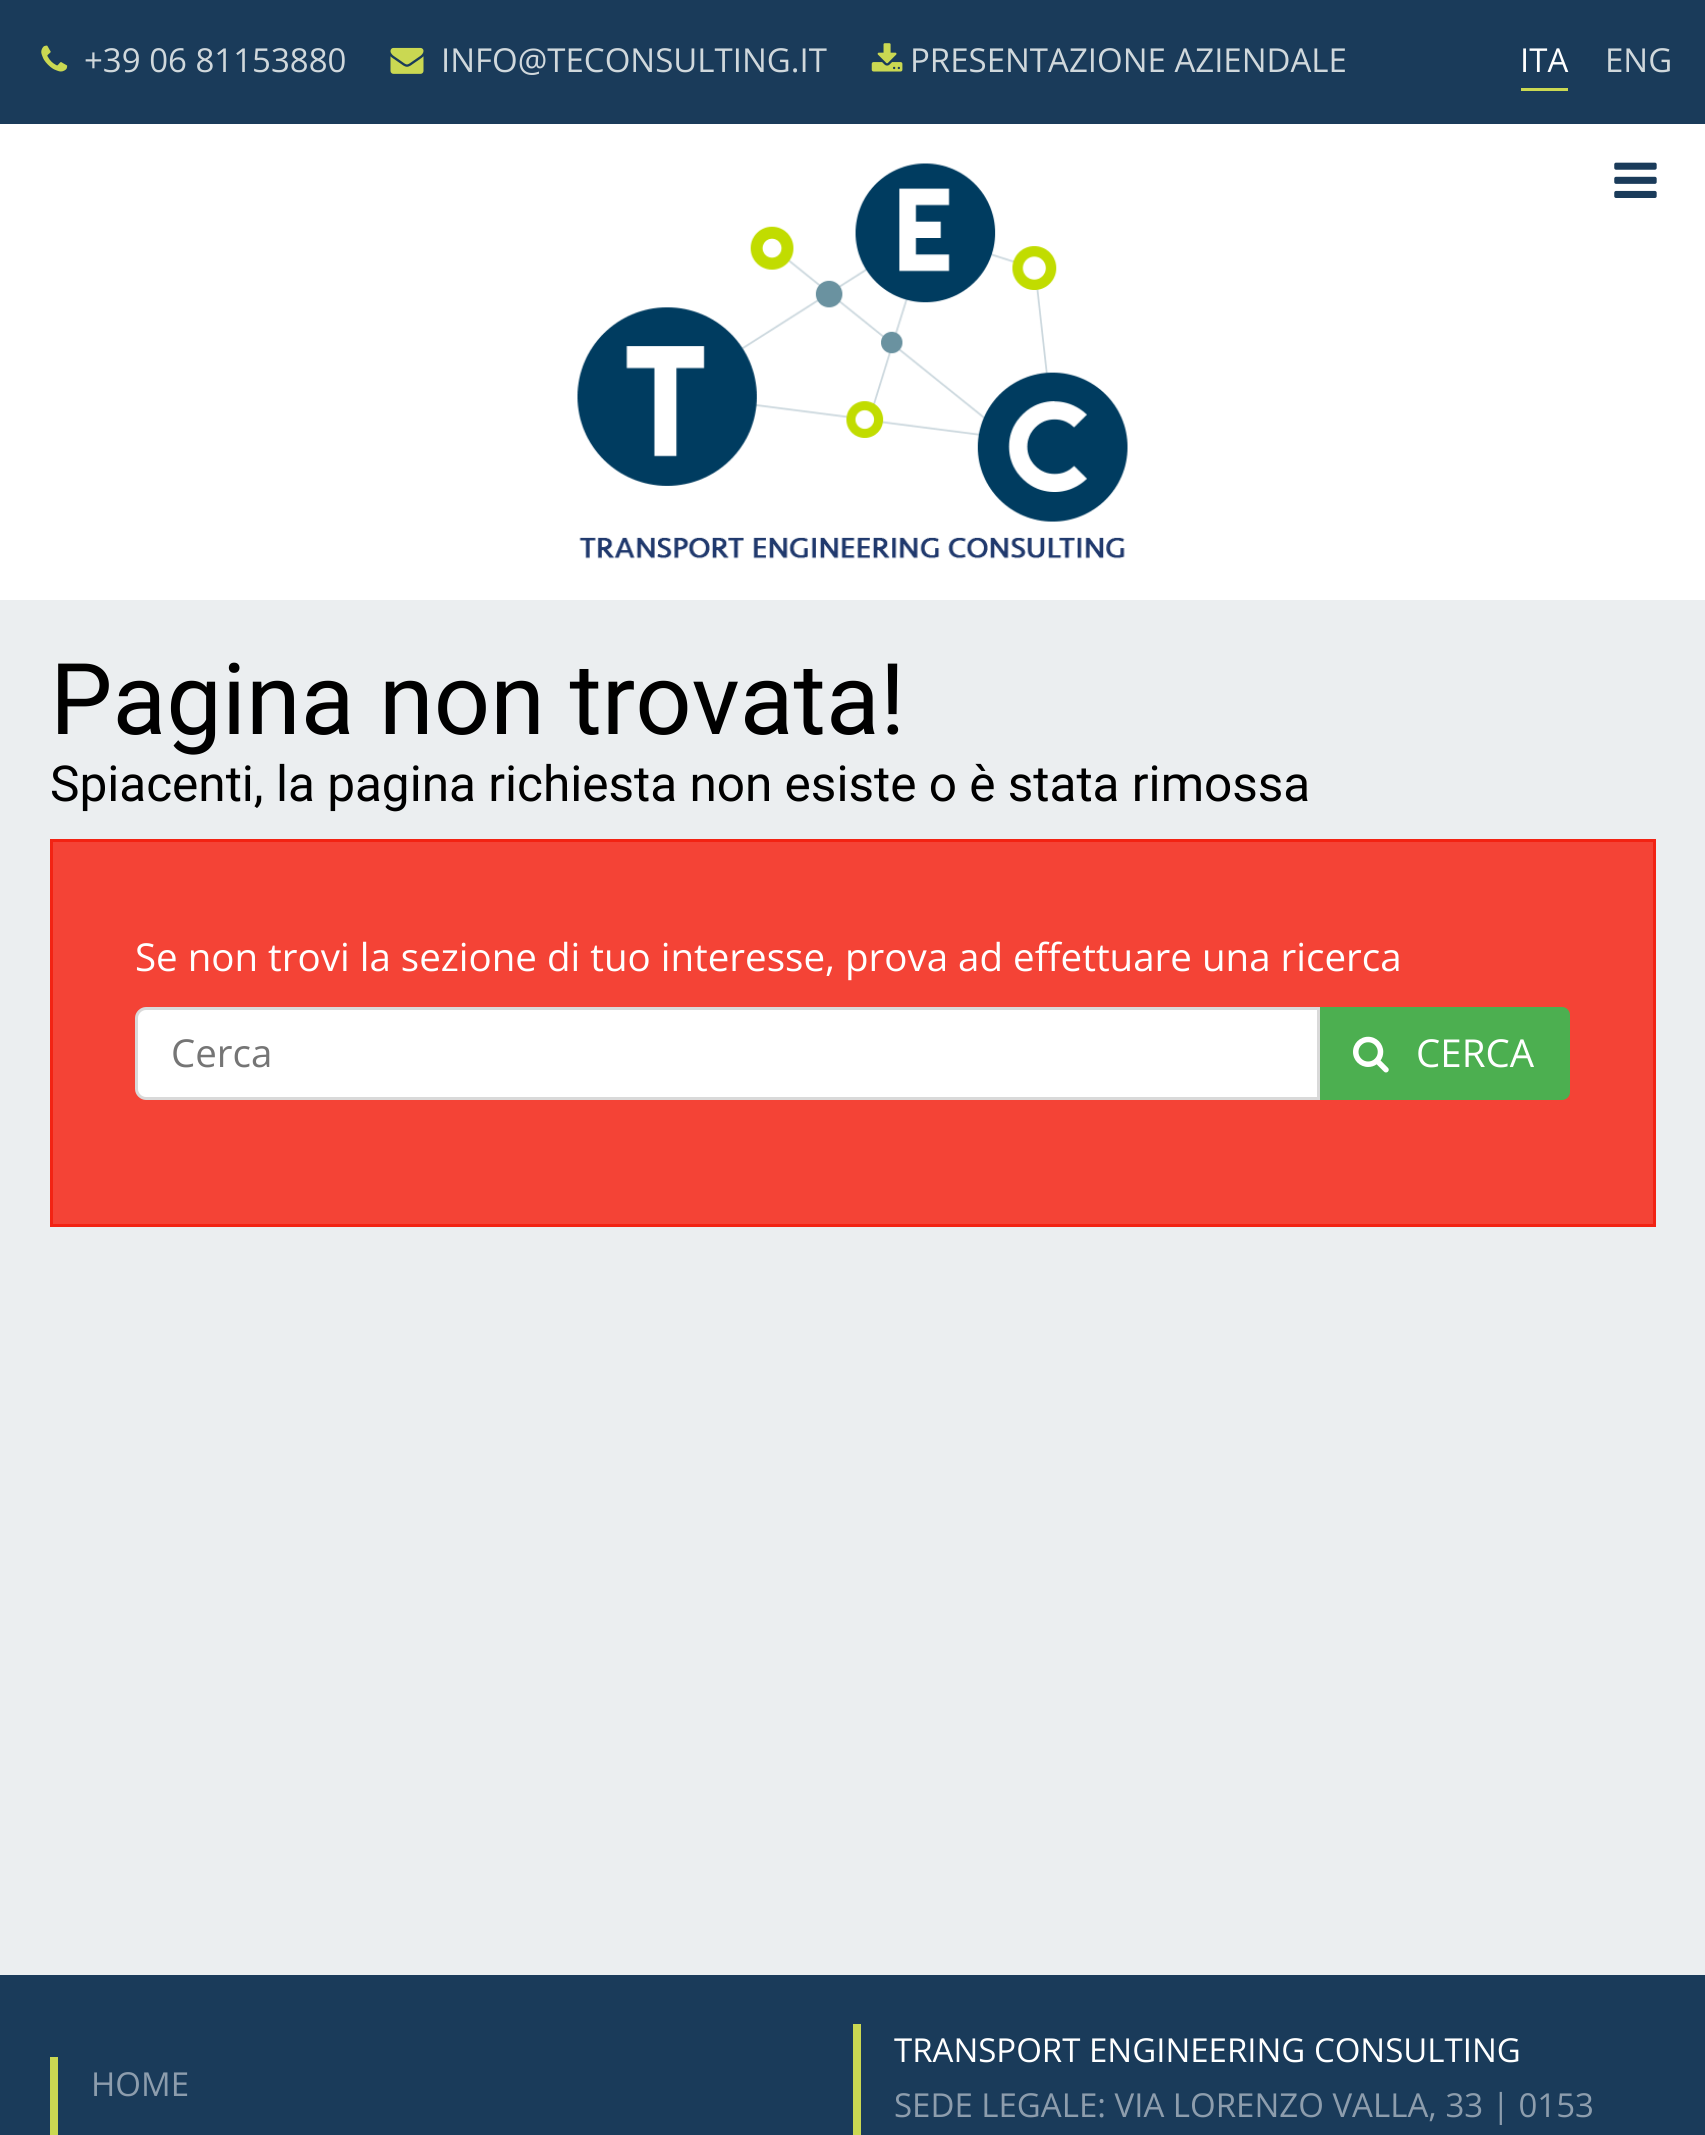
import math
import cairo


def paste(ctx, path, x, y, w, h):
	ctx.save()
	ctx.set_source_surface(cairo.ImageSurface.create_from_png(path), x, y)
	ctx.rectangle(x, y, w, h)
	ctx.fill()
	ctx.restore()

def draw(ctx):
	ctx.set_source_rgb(0.102, 0.231, 0.353)
	ctx.paint()
	ctx.set_source_rgb(1, 1, 1)
	ctx.rectangle(0, 124, 1705, 476)
	ctx.fill()
	paste(ctx, 'media/1.png', 41, 45, 27, 27)
	ctx.select_font_face('Open Sans')
	ctx.set_font_size(33)
	ctx.set_source_rgb(0.816, 0.847, 0.863)
	ctx.move_to(84, 72)
	ctx.show_text('+39 06 81153880')
	paste(ctx, 'media/2.png', 390, 47, 34, 27)
	ctx.move_to(441, 72)
	ctx.show_text('INFO@TECONSULTING.IT')
	paste(ctx, 'media/3.png', 871, 43, 32, 29)
	ctx.move_to(910, 72)
	ctx.show_text('PRESENTAZIONE AZIENDALE')
	ctx.set_source_rgb(0.792, 0.847, 0.322)
	ctx.rectangle(1521, 88, 47, 3)
	ctx.fill()
	ctx.set_source_rgb(1, 1, 1)
	ctx.move_to(1520, 72)
	ctx.show_text('ITA')
	ctx.set_source_rgb(0.816, 0.847, 0.863)
	ctx.move_to(1605, 72)
	ctx.show_text('ENG')
	paste(ctx, 'media/4.png', 577, 163, 551, 396)
	paste(ctx, 'media/5.png', 1614, 162, 43, 36)
	ctx.set_source_rgb(0.918, 0.933, 0.941)
	ctx.rectangle(0, 600, 1705, 1375)
	ctx.fill()
	ctx.select_font_face('Roboto')
	ctx.set_font_size(99)
	ctx.set_source_rgb(0, 0, 0)
	ctx.move_to(50, 734)
	ctx.show_text('Pagina non trovata!')
	ctx.set_font_size(49.5)
	ctx.move_to(50, 801)
	ctx.show_text('Spiacenti, la pagina richiesta non esiste o è stata rimossa')
	ctx.set_source_rgb(0.957, 0.263, 0.212)
	ctx.rectangle(51.5, 840.5, 1603, 385)
	ctx.fill_preserve()
	ctx.set_source_rgb(0.949, 0.137, 0.078)
	ctx.set_line_width(3)
	ctx.stroke()
	ctx.select_font_face('Open Sans')
	ctx.set_font_size(38.5)
	ctx.set_source_rgb(1, 1, 1)
	ctx.move_to(135, 971)
	ctx.show_text('Se non trovi la sezione di tuo interesse, prova ad effettuare una ricerca')
	ctx.set_source_rgb(0.298, 0.686, 0.314)
	ctx.new_path()
	ctx.move_to(1318.5, 1008.5)
	ctx.line_to(1562, 1008.5)
	ctx.curve_to(1565.5, 1008.5, 1568.5, 1011.5, 1568.5, 1015)
	ctx.line_to(1568.5, 1092)
	ctx.curve_to(1568.5, 1095.5, 1565.5, 1098.5, 1562, 1098.5)
	ctx.line_to(1318.5, 1098.5)
	ctx.close_path()
	ctx.fill_preserve()
	ctx.stroke()
	ctx.set_source_rgb(1, 1, 1)
	ctx.new_path()
	ctx.move_to(146, 1008.5)
	ctx.line_to(1318.5, 1008.5)
	ctx.line_to(1318.5, 1098.5)
	ctx.line_to(146, 1098.5)
	ctx.curve_to(141, 1098.5, 136.5, 1094, 136.5, 1089)
	ctx.line_to(136.5, 1018)
	ctx.curve_to(136.5, 1013, 141, 1008.5, 146, 1008.5)
	ctx.close_path()
	ctx.fill_preserve()
	ctx.set_source_rgb(0.851, 0.851, 0.851)
	ctx.stroke()
	ctx.set_source_rgb(0.459, 0.459, 0.459)
	ctx.move_to(171, 1067)
	ctx.show_text('Cerca')
	paste(ctx, 'media/6.png', 1353, 1036, 36, 37)
	ctx.set_source_rgb(1, 1, 1)
	ctx.move_to(1416, 1067)
	ctx.show_text('CERCA')
	ctx.set_source_rgb(0.792, 0.847, 0.322)
	ctx.rectangle(50, 2057, 8, 78)
	ctx.fill()
	ctx.set_font_size(33)
	ctx.set_source_rgb(0.553, 0.616, 0.678)
	ctx.move_to(91, 2096)
	ctx.show_text('HOME')
	ctx.set_source_rgb(0.792, 0.847, 0.322)
	ctx.rectangle(853, 2024, 8, 111)
	ctx.fill()
	ctx.set_source_rgb(1, 1, 1)
	ctx.move_to(894, 2062)
	ctx.show_text('TRANSPORT ENGINEERING CONSULTING')
	ctx.set_source_rgb(0.553, 0.616, 0.678)
	ctx.move_to(894, 2117)
	ctx.show_text('SEDE LEGALE: VIA LORENZO VALLA, 33 | 0153')


surface = cairo.ImageSurface(cairo.FORMAT_RGB24, 1705, 2135)
ctx = cairo.Context(surface)
options = cairo.FontOptions()
options.set_hint_metrics(cairo.HINT_METRICS_OFF)
options.set_hint_style(cairo.HINT_STYLE_NONE)
ctx.set_font_options(options)
ctx.set_miter_limit(4)
draw(ctx)
surface.write_to_png('image.png')
